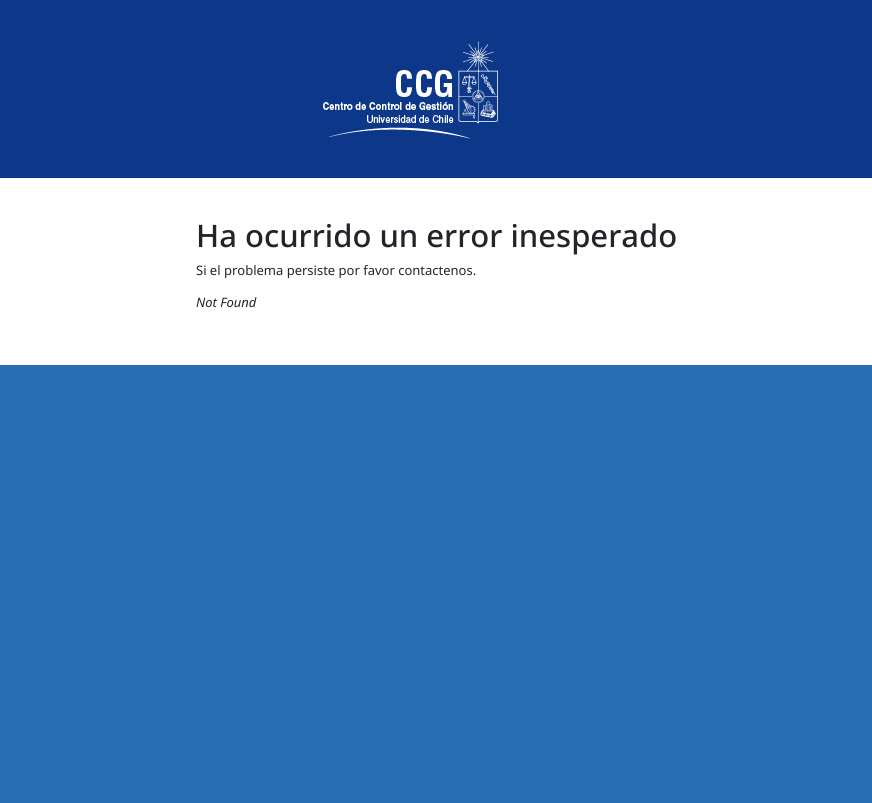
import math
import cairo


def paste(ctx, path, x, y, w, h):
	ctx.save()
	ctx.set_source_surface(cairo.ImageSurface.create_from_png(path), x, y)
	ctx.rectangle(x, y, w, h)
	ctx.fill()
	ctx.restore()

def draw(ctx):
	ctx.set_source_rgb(0.153, 0.427, 0.698)
	ctx.paint()
	ctx.set_source_rgb(1, 1, 1)
	ctx.rectangle(0, 178, 872, 187)
	ctx.fill()
	ctx.set_source_rgb(0.051, 0.216, 0.537)
	ctx.rectangle(0, 0, 872, 178)
	ctx.fill()
	paste(ctx, 'media/1.png', 323, 41, 175, 98)
	ctx.select_font_face('Noto Sans Medium')
	ctx.set_font_size(31)
	ctx.set_source_rgb(0.129, 0.145, 0.161)
	ctx.move_to(196, 247)
	ctx.show_text('Ha ocurrido un error inesperado')
	ctx.select_font_face('Noto Sans')
	ctx.set_font_size(13)
	ctx.move_to(196, 275)
	ctx.show_text('Si el problema persiste por favor contactenos.')
	ctx.select_font_face('Noto Sans', cairo.FONT_SLANT_ITALIC)
	ctx.move_to(196, 307)
	ctx.show_text('Not Found')


surface = cairo.ImageSurface(cairo.FORMAT_RGB24, 872, 803)
ctx = cairo.Context(surface)
options = cairo.FontOptions()
options.set_hint_metrics(cairo.HINT_METRICS_OFF)
options.set_hint_style(cairo.HINT_STYLE_NONE)
ctx.set_font_options(options)
ctx.set_miter_limit(4)
draw(ctx)
surface.write_to_png('image.png')
